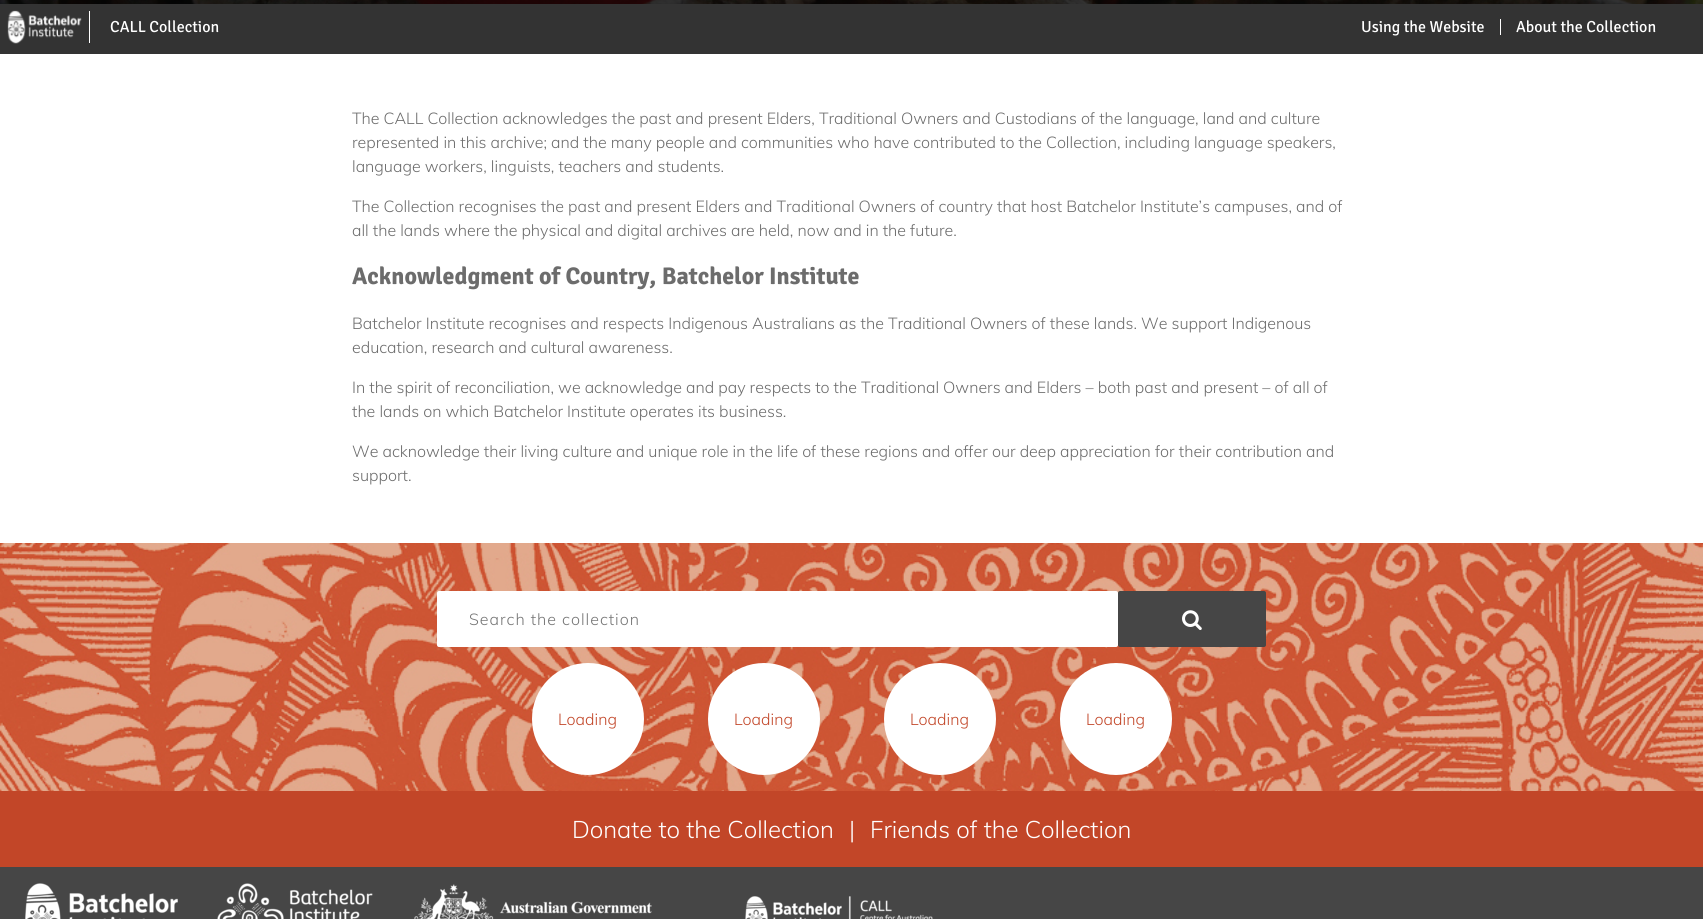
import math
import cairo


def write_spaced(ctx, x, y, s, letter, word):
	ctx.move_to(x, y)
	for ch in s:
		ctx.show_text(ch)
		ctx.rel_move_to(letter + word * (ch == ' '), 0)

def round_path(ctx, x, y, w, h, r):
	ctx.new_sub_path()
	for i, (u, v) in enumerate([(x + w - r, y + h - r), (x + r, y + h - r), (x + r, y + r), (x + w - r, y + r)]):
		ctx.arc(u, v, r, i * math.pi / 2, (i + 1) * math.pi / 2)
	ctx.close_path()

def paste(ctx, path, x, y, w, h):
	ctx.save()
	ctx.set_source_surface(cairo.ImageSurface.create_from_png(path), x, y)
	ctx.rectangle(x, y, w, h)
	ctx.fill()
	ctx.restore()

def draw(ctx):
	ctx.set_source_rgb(1, 1, 1)
	ctx.paint()
	paste(ctx, 'media/2.png', 0, 0, 1703, 4)
	ctx.set_source_rgba(0, 0, 0, 0.8)
	ctx.rectangle(0, 0, 1703, 54)
	ctx.fill()
	paste(ctx, 'media/1.png', 7, 10, 75, 34)
	ctx.set_source_rgb(1, 1, 1)
	ctx.rectangle(89, 11, 1, 32)
	ctx.fill()
	ctx.select_font_face('Signika')
	ctx.set_font_size(16)
	ctx.move_to(110, 32)
	ctx.show_text('CALL Collection')
	ctx.move_to(1361, 32)
	ctx.show_text('Using the Website')
	ctx.rectangle(1500, 19, 1, 16)
	ctx.fill()
	ctx.move_to(1516, 32)
	ctx.show_text('About the Collection')
	ctx.select_font_face('Muli Light')
	ctx.set_source_rgb(0.424, 0.424, 0.424)
	for x, y, s in [
		(352, 124, 'The CALL Collection acknowledges the past and present Elders, Traditional Owners and Custodians of the language, land and culture'),
		(352, 148, 'represented in this archive; and the many people and communities who have contributed to the Collection, including language speakers,'),
		(352, 172, 'language workers, linguists, teachers and students.'),
		(352, 212, 'The Collection recognises the past and present Elders and Traditional Owners of country that host Batchelor Institute’s campuses, and of'),
		(352, 236, 'all the lands where the physical and digital archives are held, now and in the future.'),
	]:
		ctx.move_to(x, y)
		ctx.show_text(s)
	ctx.select_font_face('Signika', cairo.FONT_SLANT_NORMAL, cairo.FONT_WEIGHT_BOLD)
	ctx.set_font_size(24)
	ctx.move_to(352, 284)
	ctx.show_text('Acknowledgment of Country, Batchelor Institute')
	ctx.select_font_face('Muli Light')
	ctx.set_font_size(16)
	for x, y, s in [
		(352, 329, 'Batchelor Institute recognises and respects Indigenous Australians as the Traditional Owners of these lands. We support Indigenous'),
		(352, 353, 'education, research and cultural awareness.'),
		(352, 393, 'In the spirit of reconciliation, we acknowledge and pay respects to the Traditional Owners and Elders – both past and present – of all of'),
		(352, 417, 'the lands on which Batchelor Institute operates its business.'),
		(352, 457, 'We acknowledge their living culture and unique role in the life of these regions and offer our deep appreciation for their contribution and'),
		(352, 481, 'support.'),
	]:
		ctx.move_to(x, y)
		ctx.show_text(s)
	paste(ctx, 'media/3.png', 0, 543, 1703, 248)
	ctx.set_source_rgb(1, 1, 1)
	round_path(ctx, 437, 591, 681, 56, 2)
	ctx.fill()
	ctx.set_source_rgb(0.459, 0.459, 0.459)
	write_spaced(ctx, 469, 625, 'Search the collection', 1, 0)
	ctx.set_source_rgb(0.275, 0.275, 0.275)
	round_path(ctx, 1118, 591, 148, 56, 2)
	ctx.fill()
	paste(ctx, 'media/4.png', 1182, 610, 20, 20)
	ctx.set_source_rgb(1, 1, 1)
	ctx.arc(588, 719, 56, 0, 2 * math.pi)
	ctx.fill()
	ctx.set_source_rgb(0.761, 0.275, 0.157)
	ctx.move_to(558, 725)
	ctx.show_text('Loading')
	ctx.set_source_rgb(1, 1, 1)
	ctx.new_path()
	ctx.arc(764, 719, 56, 0, 2 * math.pi)
	ctx.fill()
	ctx.set_source_rgb(0.761, 0.275, 0.157)
	ctx.move_to(734, 725)
	ctx.show_text('Loading')
	ctx.set_source_rgb(1, 1, 1)
	ctx.new_path()
	ctx.arc(940, 719, 56, 0, 2 * math.pi)
	ctx.fill()
	ctx.set_source_rgb(0.761, 0.275, 0.157)
	ctx.move_to(910, 725)
	ctx.show_text('Loading')
	ctx.set_source_rgb(1, 1, 1)
	ctx.new_path()
	ctx.arc(1116, 719, 56, 0, 2 * math.pi)
	ctx.fill()
	ctx.set_source_rgb(0.761, 0.275, 0.157)
	ctx.move_to(1086, 725)
	ctx.show_text('Loading')
	ctx.rectangle(0, 791, 1703, 76)
	ctx.fill()
	ctx.set_font_size(24)
	ctx.set_source_rgb(1, 1, 1)
	for x, y, s in [
		(572, 838, 'Donate to the Collection'),
		(849, 838, '|'),
		(870, 838, 'Friends of the Collection'),
	]:
		ctx.move_to(x, y)
		ctx.show_text(s)
	ctx.set_source_rgb(0.275, 0.275, 0.275)
	ctx.rectangle(0, 867, 1703, 52)
	ctx.fill()
	paste(ctx, 'media/5.png', 25, 883, 153, 36)
	paste(ctx, 'media/6.png', 217, 883, 156, 36)
	paste(ctx, 'media/7.png', 414, 884, 238, 35)
	paste(ctx, 'media/8.png', 745, 896, 188, 23)


surface = cairo.ImageSurface(cairo.FORMAT_RGB24, 1703, 919)
ctx = cairo.Context(surface)
options = cairo.FontOptions()
options.set_hint_metrics(cairo.HINT_METRICS_OFF)
options.set_hint_style(cairo.HINT_STYLE_NONE)
ctx.set_font_options(options)
ctx.set_miter_limit(4)
draw(ctx)
surface.write_to_png('image.png')
